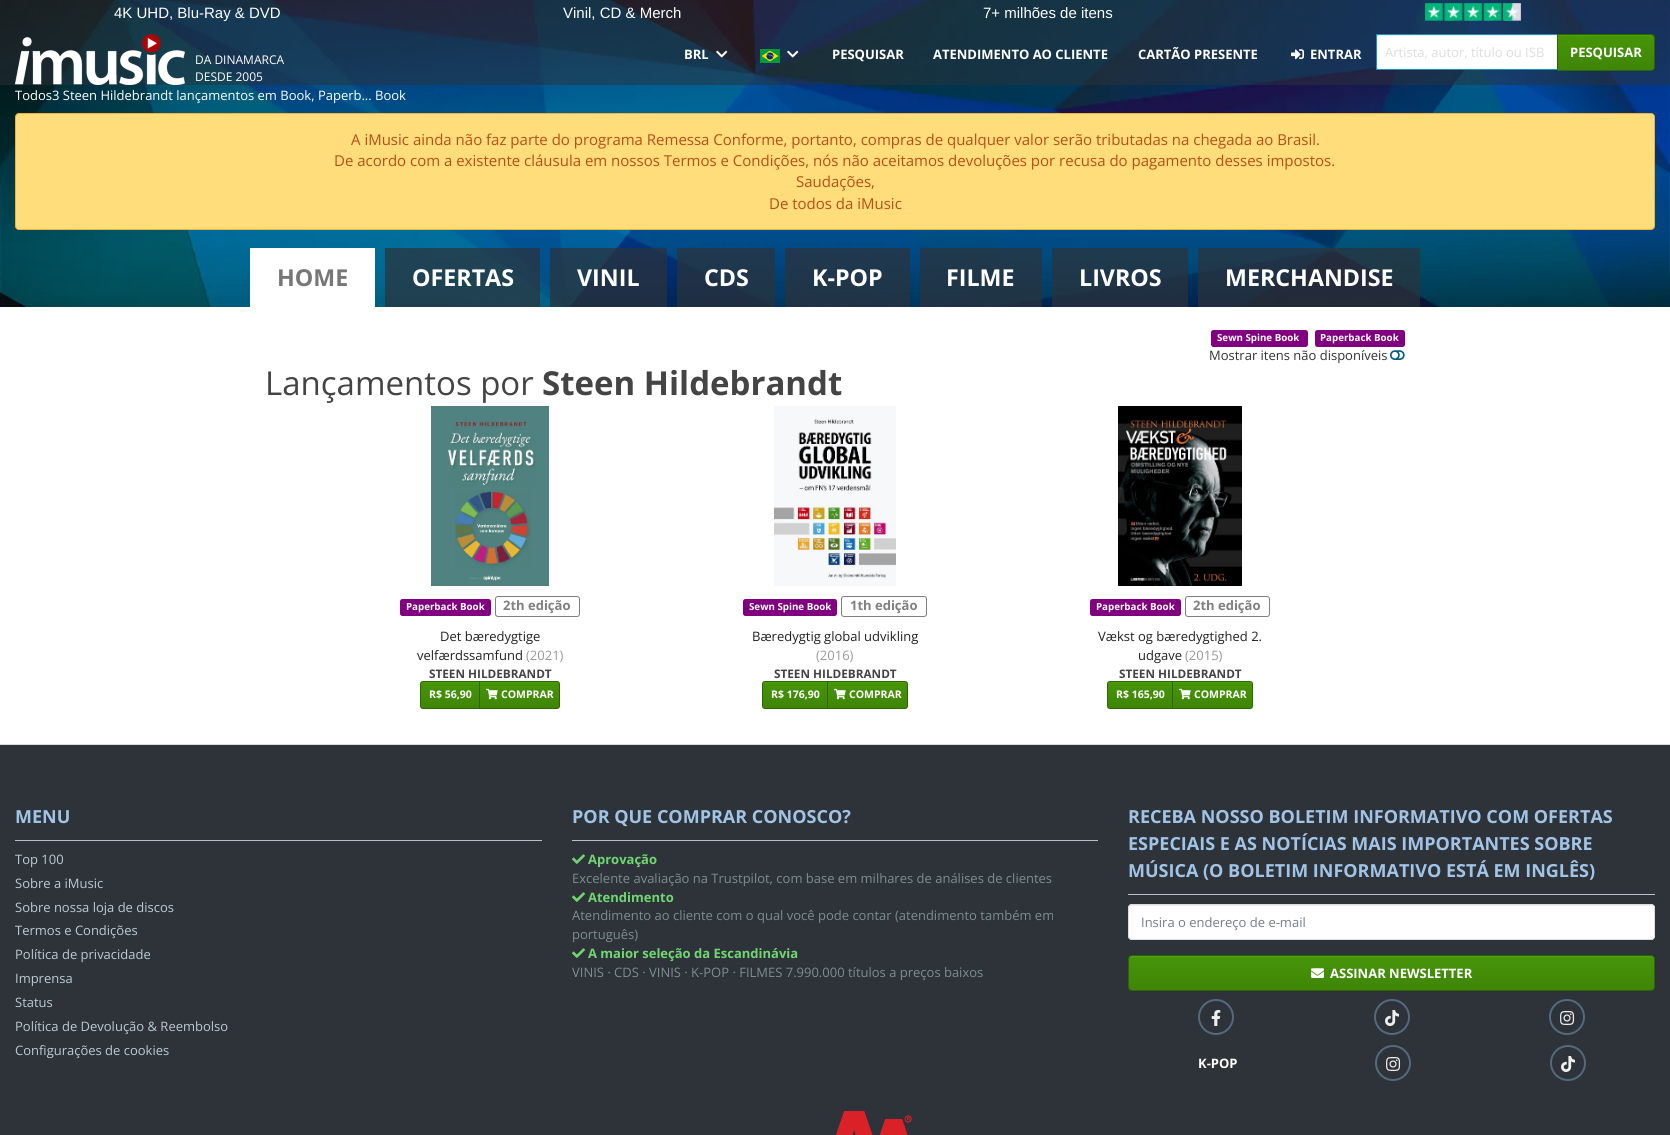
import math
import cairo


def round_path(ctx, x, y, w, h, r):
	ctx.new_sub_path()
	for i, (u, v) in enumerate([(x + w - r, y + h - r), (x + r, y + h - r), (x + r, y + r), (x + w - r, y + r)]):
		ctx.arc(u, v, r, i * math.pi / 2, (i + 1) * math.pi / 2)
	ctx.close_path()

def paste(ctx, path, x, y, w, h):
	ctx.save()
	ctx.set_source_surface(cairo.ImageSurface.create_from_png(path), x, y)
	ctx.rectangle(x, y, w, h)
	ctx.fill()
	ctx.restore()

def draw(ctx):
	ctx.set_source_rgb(1, 1, 1)
	ctx.paint()
	paste(ctx, 'media/1.png', 0, 0, 1670, 307)
	ctx.set_source_rgba(0.176, 0.2, 0.224, 0.5)
	ctx.rectangle(0, 0, 1670, 85)
	ctx.fill()
	ctx.select_font_face('Liberation Sans')
	ctx.set_font_size(15)
	ctx.set_source_rgb(1, 1, 1)
	for x, y, s in [
		(114, 18, '4K UHD, Blu-Ray & DVD'),
		(563, 18, 'Vinil, CD & Merch'),
		(983, 18, '7+ milhões de itens'),
	]:
		ctx.move_to(x, y)
		ctx.show_text(s)
	paste(ctx, 'media/2.png', 1425, 3, 96, 18)
	paste(ctx, 'media/3.png', 15, 34, 170, 51)
	ctx.select_font_face('Open Sans')
	ctx.set_font_size(12)
	ctx.move_to(195, 64)
	ctx.show_text('DA DINAMARCA')
	ctx.move_to(195, 81)
	ctx.show_text('DESDE 2005')
	ctx.select_font_face('Open Sans', cairo.FONT_SLANT_NORMAL, cairo.FONT_WEIGHT_BOLD)
	ctx.set_font_size(13)
	ctx.move_to(684, 59)
	ctx.show_text('BRL')
	paste(ctx, 'media/4.png', 716, 50, 12, 8)
	paste(ctx, 'media/5.png', 760, 49, 20, 14)
	paste(ctx, 'media/6.png', 787, 50, 12, 8)
	for x, y, s in [
		(832, 59, 'PESQUISAR'),
		(933, 59, 'ATENDIMENTO AO CLIENTE'),
		(1138, 59, 'CARTÃO PRESENTE'),
	]:
		ctx.move_to(x, y)
		ctx.show_text(s)
	paste(ctx, 'media/7.png', 1291, 49, 13, 11)
	ctx.move_to(1310, 59)
	ctx.show_text('ENTRAR')
	ctx.new_path()
	ctx.move_to(1380, 34)
	ctx.line_to(1558, 34)
	ctx.line_to(1558, 70)
	ctx.line_to(1380, 70)
	ctx.curve_to(1378, 70, 1376, 68, 1376, 66)
	ctx.line_to(1376, 38)
	ctx.curve_to(1376, 36, 1378, 34, 1380, 34)
	ctx.close_path()
	ctx.fill()
	ctx.set_source_rgba(0, 0, 0, 0.07)
	ctx.rectangle(1377, 35, 180, 1)
	ctx.fill()
	ctx.rectangle(1376.5, 34.5, 181, 35)
	ctx.set_source_rgb(0.098, 0.576, 0.714)
	ctx.set_line_width(1)
	ctx.stroke()
	ctx.select_font_face('Open Sans')
	ctx.set_source_rgb(0.867, 0.867, 0.867)
	ctx.move_to(1385, 57)
	ctx.show_text('Artista, autor, título ou ISB')
	gradient = cairo.LinearGradient(1606, 35, 1606, 70)
	gradient.add_color_stop_rgba(0, 0.302, 0.639, 0.035, 1)
	gradient.add_color_stop_rgba(0.06, 0.275, 0.58, 0.031, 1)
	gradient.add_color_stop_rgba(1, 0.247, 0.522, 0.027, 1)
	ctx.set_source(gradient)
	ctx.rectangle(1558, 35, 96, 35)
	ctx.fill()
	ctx.new_path()
	ctx.move_to(1557.5, 34.5)
	ctx.line_to(1651, 34.5)
	ctx.curve_to(1653, 34.5, 1654.5, 36, 1654.5, 38)
	ctx.line_to(1654.5, 67)
	ctx.curve_to(1654.5, 69, 1653, 70.5, 1651, 70.5)
	ctx.line_to(1557.5, 70.5)
	ctx.close_path()
	ctx.set_source_rgb(0.184, 0.392, 0.02)
	ctx.stroke()
	ctx.select_font_face('Open Sans', cairo.FONT_SLANT_NORMAL, cairo.FONT_WEIGHT_BOLD)
	ctx.set_source_rgb(1, 1, 1)
	ctx.move_to(1570, 57)
	ctx.show_text('PESQUISAR')
	ctx.select_font_face('Open Sans')
	ctx.move_to(15, 100)
	ctx.show_text('Todos3 Steen Hildebrandt lançamentos em Book, Paperb... Book')
	ctx.set_source_rgb(1, 0.867, 0.478)
	round_path(ctx, 15.5, 113.5, 1639, 116, 3.5)
	ctx.fill_preserve()
	ctx.set_source_rgb(0.933, 0.706, 0.216)
	ctx.stroke()
	ctx.set_font_size(15)
	ctx.set_source_rgb(0.725, 0.306, 0.09)
	for x, y, s in [
		(351, 145, 'A iMusic ainda não faz parte do programa Remessa Conforme, portanto, compras de qualquer valor serão tributadas na chegada ao Brasil.'),
		(334, 166, 'De acordo com a existente cláusula em nossos Termos e Condições, nós não aceitamos devoluções por recusa do pagamento desses impostos.'),
		(796, 187, 'Saudações,'),
		(769, 209, 'De todos da iMusic'),
	]:
		ctx.move_to(x, y)
		ctx.show_text(s)
	ctx.set_source_rgb(1, 1, 1)
	ctx.rectangle(250, 248, 125, 59)
	ctx.fill()
	ctx.select_font_face('Open Sans', cairo.FONT_SLANT_NORMAL, cairo.FONT_WEIGHT_BOLD)
	ctx.set_font_size(23.25)
	ctx.set_source_rgb(0.467, 0.467, 0.467)
	ctx.move_to(277, 286)
	ctx.show_text('HOME')
	ctx.set_source_rgba(0.176, 0.2, 0.224, 0.7)
	ctx.rectangle(385, 248, 155, 59)
	ctx.fill()
	ctx.set_source_rgb(1, 1, 1)
	ctx.move_to(412, 286)
	ctx.show_text('OFERTAS')
	ctx.set_source_rgba(0.176, 0.2, 0.224, 0.7)
	ctx.rectangle(550, 248, 117, 59)
	ctx.fill()
	ctx.set_source_rgb(1, 1, 1)
	ctx.move_to(577, 286)
	ctx.show_text('VINIL')
	ctx.set_source_rgba(0.176, 0.2, 0.224, 0.7)
	ctx.rectangle(677, 248, 98, 59)
	ctx.fill()
	ctx.set_source_rgb(1, 1, 1)
	ctx.move_to(704, 286)
	ctx.show_text('CDS')
	ctx.set_source_rgba(0.176, 0.2, 0.224, 0.7)
	ctx.rectangle(785, 248, 125, 59)
	ctx.fill()
	ctx.set_source_rgb(1, 1, 1)
	ctx.move_to(812, 286)
	ctx.show_text('K-POP')
	ctx.set_source_rgba(0.176, 0.2, 0.224, 0.7)
	ctx.rectangle(920, 248, 122, 59)
	ctx.fill()
	ctx.set_source_rgb(1, 1, 1)
	ctx.move_to(946, 286)
	ctx.show_text('FILME')
	ctx.set_source_rgba(0.176, 0.2, 0.224, 0.7)
	ctx.rectangle(1052, 248, 136, 59)
	ctx.fill()
	ctx.set_source_rgb(1, 1, 1)
	ctx.move_to(1079, 286)
	ctx.show_text('LIVROS')
	ctx.set_source_rgba(0.176, 0.2, 0.224, 0.7)
	ctx.rectangle(1198, 248, 222, 59)
	ctx.fill()
	ctx.set_source_rgb(1, 1, 1)
	ctx.move_to(1225, 286)
	ctx.show_text('MERCHANDISE')
	ctx.set_source_rgb(0.502, 0, 0.502)
	round_path(ctx, 1211, 330, 97, 17, 2.5)
	ctx.fill()
	ctx.set_font_size(9.75)
	ctx.set_source_rgb(1, 1, 1)
	ctx.move_to(1217, 341)
	ctx.show_text('Sewn Spine Book')
	ctx.set_source_rgb(0.502, 0, 0.502)
	round_path(ctx, 1315, 330, 90, 17, 2.5)
	ctx.fill()
	ctx.set_source_rgb(1, 1, 1)
	ctx.move_to(1320, 341)
	ctx.show_text('Paperback Book')
	ctx.select_font_face('Open Sans')
	ctx.set_font_size(13)
	ctx.set_source_rgb(0.2, 0.2, 0.2)
	ctx.move_to(1209, 360)
	ctx.show_text('Mostrar itens não disponíveis')
	paste(ctx, 'media/8.png', 1390, 350, 15, 10)
	ctx.set_font_size(33)
	ctx.set_source_rgb(0.267, 0.267, 0.267)
	ctx.move_to(265, 395)
	ctx.show_text('Lançamentos por')
	ctx.select_font_face('Open Sans', cairo.FONT_SLANT_NORMAL, cairo.FONT_WEIGHT_BOLD)
	ctx.move_to(542, 395)
	ctx.show_text('Steen Hildebrandt')
	paste(ctx, 'media/9.png', 431, 406, 118, 180)
	ctx.set_source_rgb(0.502, 0, 0.502)
	round_path(ctx, 400, 599, 91, 17, 2.5)
	ctx.fill()
	ctx.set_font_size(9.75)
	ctx.set_source_rgb(1, 1, 1)
	ctx.move_to(406, 610)
	ctx.show_text('Paperback Book')
	round_path(ctx, 495.5, 596.5, 84, 20, 2.5)
	ctx.set_source_rgb(0.502, 0.502, 0.502)
	ctx.stroke()
	ctx.set_font_size(13)
	ctx.move_to(503, 610)
	ctx.show_text('2th edição')
	ctx.select_font_face('Open Sans')
	ctx.set_source_rgb(0.133, 0.133, 0.133)
	ctx.move_to(440, 641)
	ctx.show_text('Det bæredygtige')
	ctx.move_to(417, 660)
	ctx.show_text('velfærdssamfund')
	ctx.set_source_rgb(0.6, 0.6, 0.6)
	ctx.move_to(526, 660)
	ctx.show_text('(2021)')
	ctx.select_font_face('Open Sans', cairo.FONT_SLANT_NORMAL, cairo.FONT_WEIGHT_BOLD)
	ctx.set_font_size(11.75)
	ctx.set_source_rgb(0.267, 0.267, 0.267)
	ctx.move_to(429, 678)
	ctx.show_text('STEEN HILDEBRANDT')
	gradient = cairo.LinearGradient(450, 682, 450, 708)
	gradient.add_color_stop_rgba(0, 0.302, 0.639, 0.035, 1)
	gradient.add_color_stop_rgba(0.06, 0.275, 0.58, 0.031, 1)
	gradient.add_color_stop_rgba(1, 0.247, 0.522, 0.027, 1)
	ctx.set_source(gradient)
	ctx.rectangle(421, 682, 58, 26)
	ctx.fill()
	ctx.new_path()
	ctx.move_to(423, 681.5)
	ctx.line_to(479.5, 681.5)
	ctx.line_to(479.5, 708.5)
	ctx.line_to(423, 708.5)
	ctx.curve_to(421.5, 708.5, 420.5, 707.5, 420.5, 706)
	ctx.line_to(420.5, 684)
	ctx.curve_to(420.5, 682.5, 421.5, 681.5, 423, 681.5)
	ctx.close_path()
	ctx.set_source_rgb(0.184, 0.392, 0.02)
	ctx.stroke()
	ctx.set_font_size(10.5)
	ctx.set_source_rgb(1, 1, 1)
	ctx.move_to(429, 698)
	ctx.show_text('R$ 56,90')
	gradient = cairo.LinearGradient(520, 682, 520, 708)
	gradient.add_color_stop_rgba(0, 0.302, 0.639, 0.035, 1)
	gradient.add_color_stop_rgba(0.06, 0.275, 0.58, 0.031, 1)
	gradient.add_color_stop_rgba(1, 0.247, 0.522, 0.027, 1)
	ctx.set_source(gradient)
	ctx.rectangle(480, 682, 79, 26)
	ctx.fill()
	ctx.new_path()
	ctx.move_to(479.5, 681.5)
	ctx.line_to(557, 681.5)
	ctx.curve_to(558.5, 681.5, 559.5, 682.5, 559.5, 684)
	ctx.line_to(559.5, 706)
	ctx.curve_to(559.5, 707.5, 558.5, 708.5, 557, 708.5)
	ctx.line_to(479.5, 708.5)
	ctx.close_path()
	ctx.set_source_rgb(0.184, 0.392, 0.02)
	ctx.stroke()
	paste(ctx, 'media/10.png', 486, 688, 12, 12)
	ctx.set_source_rgb(1, 1, 1)
	ctx.move_to(501, 698)
	ctx.show_text('COMPRAR')
	paste(ctx, 'media/11.png', 774, 406, 122, 180)
	ctx.set_source_rgb(0.502, 0, 0.502)
	round_path(ctx, 743, 599, 94, 17, 2.5)
	ctx.fill()
	ctx.set_font_size(9.75)
	ctx.set_source_rgb(1, 1, 1)
	ctx.move_to(749, 610)
	ctx.show_text('Sewn Spine Book')
	round_path(ctx, 841.5, 596.5, 85, 20, 2.5)
	ctx.set_source_rgb(0.502, 0.502, 0.502)
	ctx.stroke()
	ctx.set_font_size(13)
	ctx.move_to(850, 610)
	ctx.show_text('1th edição')
	ctx.select_font_face('Open Sans')
	ctx.set_source_rgb(0.133, 0.133, 0.133)
	ctx.move_to(752, 641)
	ctx.show_text('Bæredygtig global udvikling')
	ctx.set_source_rgb(0.6, 0.6, 0.6)
	ctx.move_to(816, 660)
	ctx.show_text('(2016)')
	ctx.select_font_face('Open Sans', cairo.FONT_SLANT_NORMAL, cairo.FONT_WEIGHT_BOLD)
	ctx.set_font_size(11.75)
	ctx.set_source_rgb(0.267, 0.267, 0.267)
	ctx.move_to(774, 678)
	ctx.show_text('STEEN HILDEBRANDT')
	gradient = cairo.LinearGradient(795, 682, 795, 708)
	gradient.add_color_stop_rgba(0, 0.302, 0.639, 0.035, 1)
	gradient.add_color_stop_rgba(0.06, 0.275, 0.58, 0.031, 1)
	gradient.add_color_stop_rgba(1, 0.247, 0.522, 0.027, 1)
	ctx.set_source(gradient)
	ctx.rectangle(763, 682, 64, 26)
	ctx.fill()
	ctx.new_path()
	ctx.move_to(765, 681.5)
	ctx.line_to(827.5, 681.5)
	ctx.line_to(827.5, 708.5)
	ctx.line_to(765, 708.5)
	ctx.curve_to(763.5, 708.5, 762.5, 707.5, 762.5, 706)
	ctx.line_to(762.5, 684)
	ctx.curve_to(762.5, 682.5, 763.5, 681.5, 765, 681.5)
	ctx.close_path()
	ctx.set_source_rgb(0.184, 0.392, 0.02)
	ctx.stroke()
	ctx.set_font_size(10.5)
	ctx.set_source_rgb(1, 1, 1)
	ctx.move_to(771, 698)
	ctx.show_text('R$ 176,90')
	gradient = cairo.LinearGradient(868, 682, 868, 708)
	gradient.add_color_stop_rgba(0, 0.302, 0.639, 0.035, 1)
	gradient.add_color_stop_rgba(0.06, 0.275, 0.58, 0.031, 1)
	gradient.add_color_stop_rgba(1, 0.247, 0.522, 0.027, 1)
	ctx.set_source(gradient)
	ctx.rectangle(828, 682, 79, 26)
	ctx.fill()
	ctx.new_path()
	ctx.move_to(827.5, 681.5)
	ctx.line_to(905, 681.5)
	ctx.curve_to(906.5, 681.5, 907.5, 682.5, 907.5, 684)
	ctx.line_to(907.5, 706)
	ctx.curve_to(907.5, 707.5, 906.5, 708.5, 905, 708.5)
	ctx.line_to(827.5, 708.5)
	ctx.close_path()
	ctx.set_source_rgb(0.184, 0.392, 0.02)
	ctx.stroke()
	paste(ctx, 'media/10.png', 834, 688, 12, 12)
	ctx.set_source_rgb(1, 1, 1)
	ctx.move_to(849, 698)
	ctx.show_text('COMPRAR')
	paste(ctx, 'media/12.png', 1118, 406, 124, 180)
	ctx.set_source_rgb(0.502, 0, 0.502)
	round_path(ctx, 1090, 599, 91, 17, 2.5)
	ctx.fill()
	ctx.set_font_size(9.75)
	ctx.set_source_rgb(1, 1, 1)
	ctx.move_to(1096, 610)
	ctx.show_text('Paperback Book')
	round_path(ctx, 1185.5, 596.5, 84, 20, 2.5)
	ctx.set_source_rgb(0.502, 0.502, 0.502)
	ctx.stroke()
	ctx.set_font_size(13)
	ctx.move_to(1193, 610)
	ctx.show_text('2th edição')
	ctx.select_font_face('Open Sans')
	ctx.set_source_rgb(0.133, 0.133, 0.133)
	ctx.move_to(1098, 641)
	ctx.show_text('Vækst og bæredygtighed 2.')
	ctx.move_to(1138, 660)
	ctx.show_text('udgave')
	ctx.set_source_rgb(0.6, 0.6, 0.6)
	ctx.move_to(1185, 660)
	ctx.show_text('(2015)')
	ctx.select_font_face('Open Sans', cairo.FONT_SLANT_NORMAL, cairo.FONT_WEIGHT_BOLD)
	ctx.set_font_size(11.75)
	ctx.set_source_rgb(0.267, 0.267, 0.267)
	ctx.move_to(1119, 678)
	ctx.show_text('STEEN HILDEBRANDT')
	gradient = cairo.LinearGradient(1140, 682, 1140, 708)
	gradient.add_color_stop_rgba(0, 0.302, 0.639, 0.035, 1)
	gradient.add_color_stop_rgba(0.06, 0.275, 0.58, 0.031, 1)
	gradient.add_color_stop_rgba(1, 0.247, 0.522, 0.027, 1)
	ctx.set_source(gradient)
	ctx.rectangle(1108, 682, 64, 26)
	ctx.fill()
	ctx.new_path()
	ctx.move_to(1110, 681.5)
	ctx.line_to(1172.5, 681.5)
	ctx.line_to(1172.5, 708.5)
	ctx.line_to(1110, 708.5)
	ctx.curve_to(1108.5, 708.5, 1107.5, 707.5, 1107.5, 706)
	ctx.line_to(1107.5, 684)
	ctx.curve_to(1107.5, 682.5, 1108.5, 681.5, 1110, 681.5)
	ctx.close_path()
	ctx.set_source_rgb(0.184, 0.392, 0.02)
	ctx.stroke()
	ctx.set_font_size(10.5)
	ctx.set_source_rgb(1, 1, 1)
	ctx.move_to(1116, 698)
	ctx.show_text('R$ 165,90')
	gradient = cairo.LinearGradient(1213, 682, 1213, 708)
	gradient.add_color_stop_rgba(0, 0.302, 0.639, 0.035, 1)
	gradient.add_color_stop_rgba(0.06, 0.275, 0.58, 0.031, 1)
	gradient.add_color_stop_rgba(1, 0.247, 0.522, 0.027, 1)
	ctx.set_source(gradient)
	ctx.rectangle(1173, 682, 79, 26)
	ctx.fill()
	ctx.new_path()
	ctx.move_to(1172.5, 681.5)
	ctx.line_to(1250, 681.5)
	ctx.curve_to(1251.5, 681.5, 1252.5, 682.5, 1252.5, 684)
	ctx.line_to(1252.5, 706)
	ctx.curve_to(1252.5, 707.5, 1251.5, 708.5, 1250, 708.5)
	ctx.line_to(1172.5, 708.5)
	ctx.close_path()
	ctx.set_source_rgb(0.184, 0.392, 0.02)
	ctx.stroke()
	paste(ctx, 'media/10.png', 1179, 688, 12, 12)
	ctx.set_source_rgb(1, 1, 1)
	ctx.move_to(1194, 698)
	ctx.show_text('COMPRAR')
	ctx.set_source_rgb(0.176, 0.2, 0.224)
	ctx.rectangle(0, 745, 1670, 390)
	ctx.fill()
	ctx.set_source_rgb(0.867, 0.867, 0.867)
	ctx.rectangle(0, 744, 1670, 1)
	ctx.fill()
	ctx.set_source_rgb(0.729, 0.757, 0.784)
	ctx.rectangle(15, 840, 527, 1)
	ctx.fill()
	ctx.set_font_size(18)
	ctx.set_source_rgb(0.631, 0.769, 0.902)
	ctx.move_to(15, 823)
	ctx.show_text('MENU')
	ctx.select_font_face('Open Sans')
	ctx.set_font_size(13)
	ctx.set_source_rgb(0.745, 0.792, 0.816)
	for x, y, s in [
		(15, 864, 'Top 100'),
		(15, 888, 'Sobre a iMusic'),
		(15, 912, 'Sobre nossa loja de discos'),
		(15, 935, 'Termos e Condições'),
		(15, 959, 'Política de privacidade'),
		(15, 983, 'Imprensa'),
		(15, 1007, 'Status'),
		(15, 1031, 'Política de Devolução & Reembolso'),
		(15, 1055, 'Configurações de cookies'),
	]:
		ctx.move_to(x, y)
		ctx.show_text(s)
	ctx.set_source_rgb(0.729, 0.757, 0.784)
	ctx.rectangle(572, 840, 526, 1)
	ctx.fill()
	ctx.select_font_face('Open Sans', cairo.FONT_SLANT_NORMAL, cairo.FONT_WEIGHT_BOLD)
	ctx.set_font_size(18)
	ctx.set_source_rgb(0.631, 0.769, 0.902)
	ctx.move_to(572, 823)
	ctx.show_text('POR QUE COMPRAR CONOSCO?')
	paste(ctx, 'media/13.png', 572, 854, 13, 10)
	ctx.set_font_size(13)
	ctx.set_source_rgb(0.443, 0.839, 0.447)
	ctx.move_to(588, 864)
	ctx.show_text('Aprovação')
	ctx.select_font_face('Open Sans')
	ctx.set_source_rgb(0.498, 0.549, 0.553)
	ctx.move_to(572, 883)
	ctx.show_text('Excelente avaliação na Trustpilot, com base em milhares de análises de clientes')
	paste(ctx, 'media/13.png', 572, 892, 13, 10)
	ctx.select_font_face('Open Sans', cairo.FONT_SLANT_NORMAL, cairo.FONT_WEIGHT_BOLD)
	ctx.set_source_rgb(0.443, 0.839, 0.447)
	ctx.move_to(588, 902)
	ctx.show_text('Atendimento')
	ctx.select_font_face('Open Sans')
	ctx.set_source_rgb(0.498, 0.549, 0.553)
	ctx.move_to(572, 920)
	ctx.show_text('Atendimento ao cliente com o qual você pode contar (atendimento também em')
	ctx.move_to(572, 939)
	ctx.show_text('português)')
	paste(ctx, 'media/13.png', 572, 948, 13, 10)
	ctx.select_font_face('Open Sans', cairo.FONT_SLANT_NORMAL, cairo.FONT_WEIGHT_BOLD)
	ctx.set_source_rgb(0.443, 0.839, 0.447)
	ctx.move_to(588, 958)
	ctx.show_text('A maior seleção da Escandinávia')
	ctx.select_font_face('Open Sans')
	ctx.set_source_rgb(0.498, 0.549, 0.553)
	ctx.move_to(572, 977)
	ctx.show_text('VINIS · CDS · VINIS · K-POP · FILMES 7.990.000 títulos a preços baixos')
	ctx.set_source_rgb(0.729, 0.757, 0.784)
	ctx.rectangle(1128, 894, 527, 1)
	ctx.fill()
	ctx.select_font_face('Open Sans', cairo.FONT_SLANT_NORMAL, cairo.FONT_WEIGHT_BOLD)
	ctx.set_font_size(18)
	ctx.set_source_rgb(0.631, 0.769, 0.902)
	for x, y, s in [
		(1128, 823, 'RECEBA NOSSO BOLETIM INFORMATIVO COM OFERTAS'),
		(1128, 850, 'ESPECIAIS E AS NOTÍCIAS MAIS IMPORTANTES SOBRE'),
		(1128, 877, 'MÚSICA (O BOLETIM INFORMATIVO ESTÁ EM INGLÊS)'),
	]:
		ctx.move_to(x, y)
		ctx.show_text(s)
	ctx.set_source_rgb(1, 1, 1)
	round_path(ctx, 1128, 904, 527, 36, 4)
	ctx.fill()
	ctx.set_source_rgb(0.925, 0.925, 0.925)
	ctx.new_path()
	ctx.move_to(1132, 906)
	ctx.line_to(1651, 906)
	ctx.curve_to(1653, 906, 1654, 907, 1654, 909)
	ctx.line_to(1653, 906)
	ctx.line_to(1651, 905)
	ctx.line_to(1132, 905)
	ctx.curve_to(1130, 905, 1129, 907, 1129, 909)
	ctx.curve_to(1129, 907, 1130, 906, 1132, 906)
	ctx.close_path()
	ctx.fill()
	round_path(ctx, 1128.5, 904.5, 526, 35, 3.5)
	ctx.set_source_rgb(0.867, 0.867, 0.867)
	ctx.stroke()
	ctx.select_font_face('Open Sans')
	ctx.set_font_size(13)
	ctx.set_source_rgb(0.471, 0.49, 0.525)
	ctx.move_to(1141, 927)
	ctx.show_text('Insira o endereço de e-mail')
	ctx.save()
	round_path(ctx, 1128, 955, 527, 36, 4)
	ctx.clip()
	gradient = cairo.LinearGradient(1392, 956, 1392, 990)
	gradient.add_color_stop_rgba(0, 0.302, 0.639, 0.035, 1)
	gradient.add_color_stop_rgba(0.06, 0.275, 0.58, 0.031, 1)
	gradient.add_color_stop_rgba(1, 0.247, 0.522, 0.027, 1)
	ctx.set_source(gradient)
	ctx.rectangle(1129, 956, 525, 34)
	ctx.fill()
	ctx.restore()
	round_path(ctx, 1128.5, 955.5, 526, 35, 3.5)
	ctx.set_source_rgb(0.184, 0.392, 0.02)
	ctx.stroke()
	paste(ctx, 'media/14.png', 1311, 968, 13, 10)
	ctx.select_font_face('Open Sans', cairo.FONT_SLANT_NORMAL, cairo.FONT_WEIGHT_BOLD)
	ctx.set_source_rgb(1, 1, 1)
	ctx.move_to(1330, 978)
	ctx.show_text('ASSINAR NEWSLETTER')
	ctx.new_path()
	ctx.arc(1216, 1017, 17, 0, 2 * math.pi)
	ctx.set_source_rgb(0.329, 0.412, 0.494)
	ctx.set_line_width(2)
	ctx.stroke()
	paste(ctx, 'media/15.png', 1211, 1010, 10, 16)
	ctx.arc(1392, 1017, 17, 0, 2 * math.pi)
	ctx.stroke()
	paste(ctx, 'media/16.png', 1385, 1010, 14, 16)
	ctx.arc(1567, 1017, 17, 0, 2 * math.pi)
	ctx.stroke()
	paste(ctx, 'media/17.png', 1560, 1011, 15, 14)
	ctx.set_source_rgb(1, 1, 1)
	ctx.move_to(1198, 1068)
	ctx.show_text('K-POP')
	ctx.new_path()
	ctx.arc(1393, 1063, 17, 0, 2 * math.pi)
	ctx.set_source_rgb(0.329, 0.412, 0.494)
	ctx.stroke()
	paste(ctx, 'media/17.png', 1386, 1057, 15, 14)
	ctx.arc(1568, 1063, 17, 0, 2 * math.pi)
	ctx.stroke()
	paste(ctx, 'media/16.png', 1561, 1056, 14, 16)
	paste(ctx, 'media/18.png', 836, 1111, 76, 24)
	paste(ctx, 'media/19.png', 836, 1111, 76, 24)


surface = cairo.ImageSurface(cairo.FORMAT_RGB24, 1670, 1135)
ctx = cairo.Context(surface)
options = cairo.FontOptions()
options.set_hint_metrics(cairo.HINT_METRICS_OFF)
options.set_hint_style(cairo.HINT_STYLE_NONE)
ctx.set_font_options(options)
ctx.set_miter_limit(4)
draw(ctx)
surface.write_to_png('image.png')
